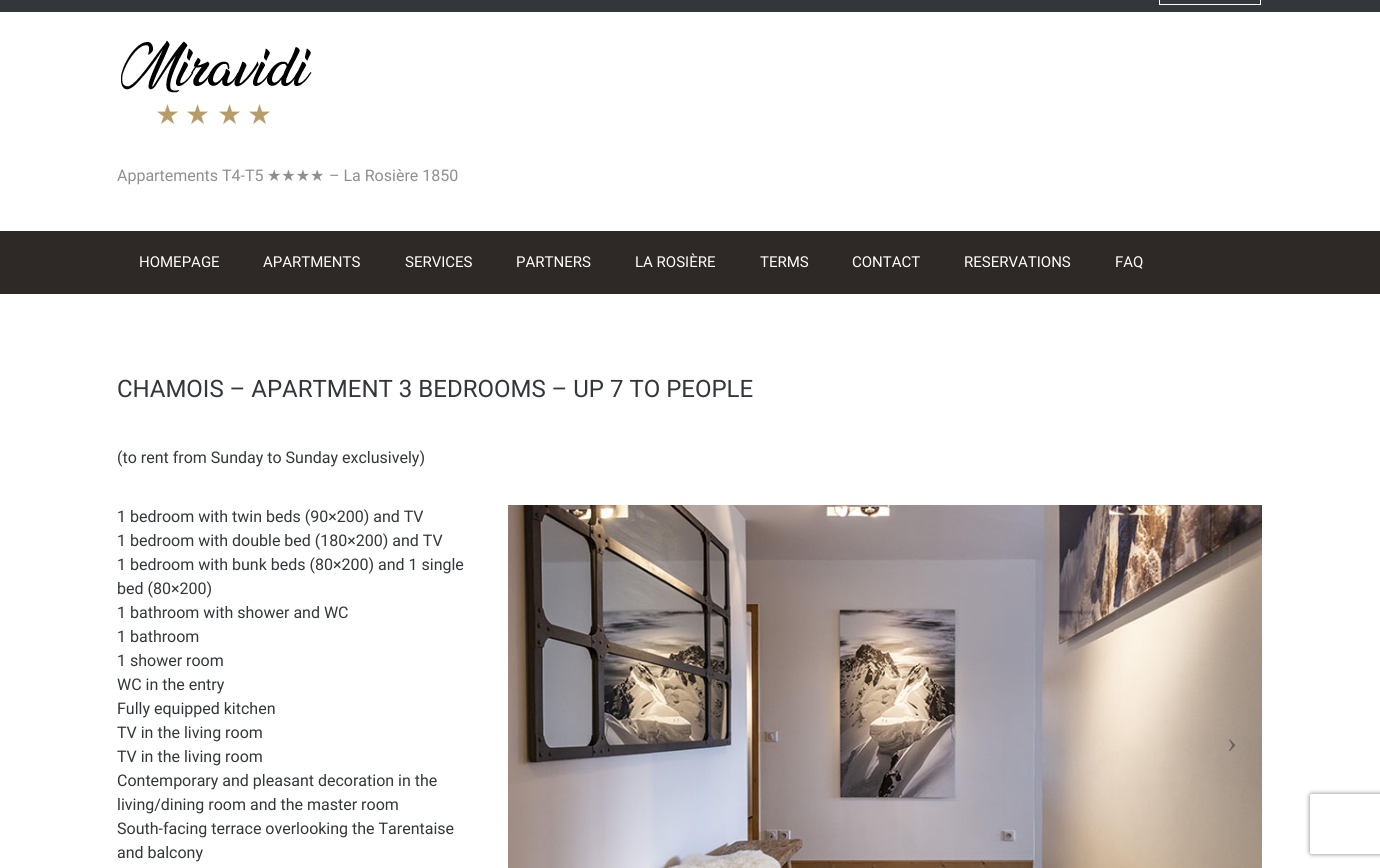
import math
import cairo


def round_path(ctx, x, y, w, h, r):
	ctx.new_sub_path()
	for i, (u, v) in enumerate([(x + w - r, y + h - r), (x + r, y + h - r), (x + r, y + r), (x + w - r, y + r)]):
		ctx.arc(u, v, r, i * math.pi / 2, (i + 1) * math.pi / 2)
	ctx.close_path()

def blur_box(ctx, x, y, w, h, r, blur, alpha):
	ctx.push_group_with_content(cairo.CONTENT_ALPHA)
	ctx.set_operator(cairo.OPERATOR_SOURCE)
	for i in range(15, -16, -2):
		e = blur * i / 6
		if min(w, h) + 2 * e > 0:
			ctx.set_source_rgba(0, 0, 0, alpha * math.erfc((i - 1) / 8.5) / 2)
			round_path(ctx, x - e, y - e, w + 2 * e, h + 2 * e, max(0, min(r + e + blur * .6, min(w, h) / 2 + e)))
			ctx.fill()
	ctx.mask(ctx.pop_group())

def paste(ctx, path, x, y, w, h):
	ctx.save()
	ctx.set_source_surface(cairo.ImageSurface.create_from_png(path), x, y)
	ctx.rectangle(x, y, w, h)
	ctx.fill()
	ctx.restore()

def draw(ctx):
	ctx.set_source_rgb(1, 1, 1)
	ctx.paint()
	ctx.set_source_rgb(0.2, 0.212, 0.227)
	ctx.rectangle(0, 0, 1380, 12)
	ctx.fill()
	ctx.rectangle(1159.5, -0.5, 101, 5)
	ctx.set_source_rgb(1, 1, 1)
	ctx.set_line_width(1)
	ctx.stroke()
	paste(ctx, 'media/1.png', 121, 40, 191, 84)
	ctx.select_font_face('Roboto')
	ctx.set_font_size(16)
	ctx.set_source_rgb(0.561, 0.561, 0.561)
	ctx.move_to(117, 181)
	ctx.show_text('Appartements T4-T5')
	ctx.select_font_face('DejaVu Sans')
	ctx.move_to(267, 181)
	ctx.show_text('★★★★')
	ctx.select_font_face('Roboto')
	ctx.move_to(329, 181)
	ctx.show_text('– La Rosière 1850')
	ctx.set_source_rgb(0.18, 0.157, 0.149)
	ctx.rectangle(0, 231, 1380, 63)
	ctx.fill()
	ctx.set_font_size(15)
	ctx.set_source_rgb(1, 1, 1)
	for x, y, s in [
		(139, 267, 'HOMEPAGE'),
		(263, 267, 'APARTMENTS'),
		(405, 267, 'SERVICES'),
		(516, 267, 'PARTNERS'),
		(635, 267, 'LA ROSIÈRE'),
		(760, 267, 'TERMS'),
		(852, 267, 'CONTACT'),
		(964, 267, 'RESERVATIONS'),
		(1115, 267, 'FAQ'),
	]:
		ctx.move_to(x, y)
		ctx.show_text(s)
	ctx.set_font_size(24)
	ctx.set_source_rgb(0.2, 0.212, 0.227)
	ctx.move_to(117, 397)
	ctx.show_text('CHAMOIS – APARTMENT 3 BEDROOMS – UP 7 TO PEOPLE')
	ctx.set_font_size(16)
	for x, y, s in [
		(117, 463, '(to rent from Sunday to Sunday exclusively)'),
		(117, 522, '1 bedroom with twin beds (90×200) and TV'),
		(117, 546, '1 bedroom with double bed (180×200) and TV'),
		(117, 570, '1 bedroom with bunk beds (80×200) and 1 single'),
		(117, 594, 'bed (80×200)'),
		(117, 618, '1 bathroom with shower and WC'),
		(117, 642, '1 bathroom'),
		(117, 666, '1 shower room'),
		(117, 690, 'WC in the entry'),
		(117, 714, 'Fully equipped kitchen'),
		(117, 738, 'TV in the living room'),
		(117, 762, 'TV in the living room'),
		(117, 786, 'Contemporary and pleasant decoration in the'),
		(117, 810, 'living/dining room and the master room'),
		(117, 834, 'South-facing terrace overlooking the Tarentaise'),
		(117, 858, 'and balcony'),
	]:
		ctx.move_to(x, y)
		ctx.show_text(s)
	paste(ctx, 'media/2.png', 508, 505, 754, 363)
	ctx.select_font_face('Liberation Serif')
	ctx.set_font_size(30)
	ctx.set_source_rgb(0.424, 0.38, 0.349)
	ctx.move_to(1227, 752)
	ctx.show_text('›')
	ctx.save()
	ctx.set_fill_rule(cairo.FILL_RULE_EVEN_ODD)
	ctx.new_path()
	ctx.move_to(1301, 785)
	ctx.line_to(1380, 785)
	ctx.line_to(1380, 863)
	ctx.line_to(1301, 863)
	ctx.close_path()
	ctx.move_to(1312, 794)
	ctx.line_to(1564, 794)
	ctx.curve_to(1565, 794, 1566, 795, 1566, 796)
	ctx.line_to(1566, 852)
	ctx.curve_to(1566, 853, 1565, 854, 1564, 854)
	ctx.line_to(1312, 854)
	ctx.curve_to(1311, 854, 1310, 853, 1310, 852)
	ctx.line_to(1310, 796)
	ctx.curve_to(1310, 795, 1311, 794, 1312, 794)
	ctx.close_path()
	ctx.clip()
	ctx.set_source_rgb(0.502, 0.502, 0.502)
	blur_box(ctx, 1310, 794, 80, 60, 2, 2.5, 1)
	ctx.restore()


surface = cairo.ImageSurface(cairo.FORMAT_RGB24, 1380, 868)
ctx = cairo.Context(surface)
options = cairo.FontOptions()
options.set_hint_metrics(cairo.HINT_METRICS_OFF)
options.set_hint_style(cairo.HINT_STYLE_NONE)
ctx.set_font_options(options)
ctx.set_miter_limit(4)
draw(ctx)
surface.write_to_png('image.png')
